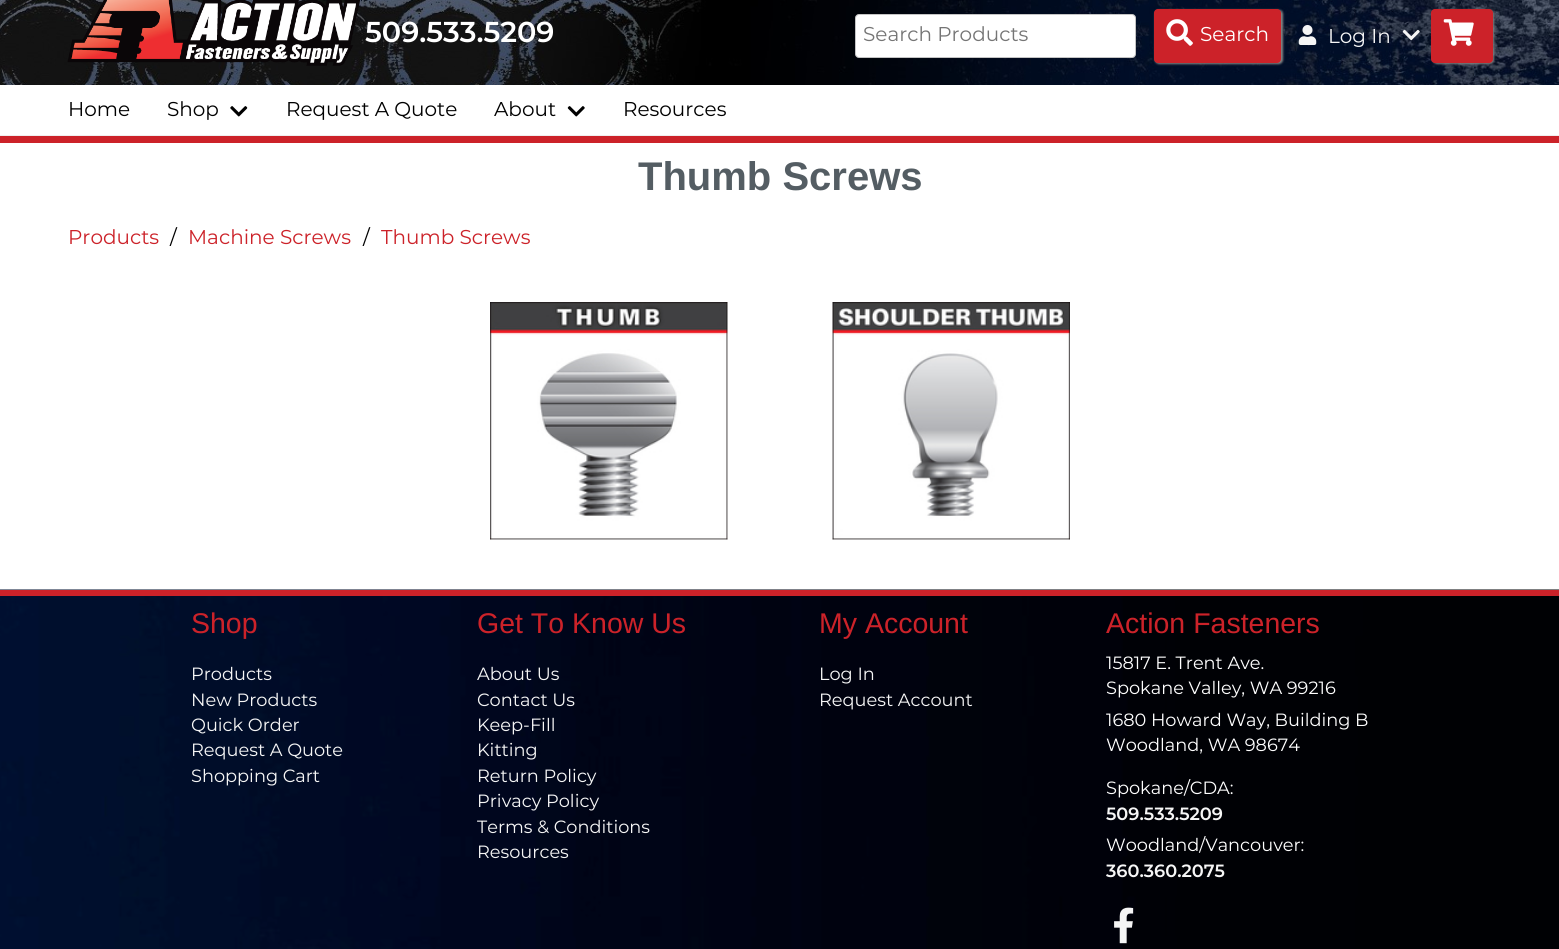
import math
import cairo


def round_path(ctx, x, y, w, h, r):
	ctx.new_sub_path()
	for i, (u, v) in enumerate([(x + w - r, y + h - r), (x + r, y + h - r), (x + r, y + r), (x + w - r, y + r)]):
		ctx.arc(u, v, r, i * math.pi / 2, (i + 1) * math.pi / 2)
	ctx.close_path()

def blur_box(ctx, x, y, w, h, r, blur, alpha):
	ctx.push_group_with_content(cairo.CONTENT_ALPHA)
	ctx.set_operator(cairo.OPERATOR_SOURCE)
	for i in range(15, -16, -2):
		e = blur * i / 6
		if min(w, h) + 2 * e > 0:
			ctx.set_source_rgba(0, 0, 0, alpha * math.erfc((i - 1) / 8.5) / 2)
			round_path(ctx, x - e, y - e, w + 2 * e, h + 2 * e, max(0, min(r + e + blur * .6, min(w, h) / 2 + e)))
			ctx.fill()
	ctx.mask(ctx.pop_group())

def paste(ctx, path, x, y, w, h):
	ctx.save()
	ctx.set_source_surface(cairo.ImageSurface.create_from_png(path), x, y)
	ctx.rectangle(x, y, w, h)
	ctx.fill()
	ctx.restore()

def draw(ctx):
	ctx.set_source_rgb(1, 1, 1)
	ctx.paint()
	paste(ctx, 'media/1.png', 0, 0, 1559, 85)
	ctx.set_source_rgb(0.8, 0.133, 0.161)
	ctx.rectangle(0, 136, 1559, 7)
	ctx.fill()
	paste(ctx, 'media/2.png', 67, 0, 293, 66)
	ctx.select_font_face('Montserrat SemiBold')
	ctx.set_font_size(28.75)
	ctx.set_source_rgb(1, 1, 1)
	ctx.move_to(365, 42)
	ctx.show_text('509.533.5209')
	round_path(ctx, 855.5, 14.5, 280, 43, 3.5)
	ctx.fill_preserve()
	ctx.set_source_rgb(0.769, 0.769, 0.769)
	ctx.set_line_width(1)
	ctx.stroke()
	ctx.select_font_face('Montserrat')
	ctx.set_font_size(20)
	ctx.set_source_rgb(0.459, 0.459, 0.459)
	ctx.move_to(863, 41)
	ctx.show_text('Search Products')
	ctx.set_source_rgb(0.518, 0.518, 0.518)
	blur_box(ctx, 1155, 10, 128, 54, 4, 1, 1)
	ctx.set_source_rgb(0.8, 0.133, 0.161)
	round_path(ctx, 1154, 9, 127, 54, 4)
	ctx.fill()
	paste(ctx, 'media/3.png', 1166, 19, 27, 27)
	ctx.set_source_rgb(1, 1, 1)
	ctx.move_to(1200, 41)
	ctx.show_text('Search')
	paste(ctx, 'media/4.png', 1298, 25, 19, 20)
	ctx.set_source_rgb(0.961, 0.961, 0.961)
	ctx.move_to(1328, 43)
	ctx.show_text('Log In')
	paste(ctx, 'media/5.png', 1402, 29, 18, 12)
	ctx.set_source_rgb(0.518, 0.518, 0.518)
	blur_box(ctx, 1433, 10, 61, 54, 4, 1, 1)
	ctx.set_source_rgb(0.8, 0.133, 0.161)
	round_path(ctx, 1431, 9, 62, 54, 4)
	ctx.fill()
	paste(ctx, 'media/6.png', 1443, 19, 31, 27)
	ctx.set_source_rgb(0.937, 0.937, 0.937)
	ctx.rectangle(0, 135, 1559, 1)
	ctx.fill()
	ctx.set_source_rgb(0, 0, 0)
	ctx.move_to(68, 116)
	ctx.show_text('Home')
	ctx.move_to(167, 116)
	ctx.show_text('Shop')
	paste(ctx, 'media/7.png', 230, 106, 18, 11)
	ctx.move_to(286, 116)
	ctx.show_text('Request A Quote')
	ctx.move_to(494, 116)
	ctx.show_text('About')
	paste(ctx, 'media/8.png', 567, 106, 18, 11)
	ctx.move_to(623, 116)
	ctx.show_text('Resources')
	ctx.select_font_face('Liberation Sans', cairo.FONT_SLANT_NORMAL, cairo.FONT_WEIGHT_BOLD)
	ctx.set_font_size(40)
	ctx.set_source_rgb(0.329, 0.365, 0.388)
	ctx.move_to(638, 190)
	ctx.show_text('Thumb Screws')
	ctx.select_font_face('Montserrat')
	ctx.set_font_size(20)
	ctx.set_source_rgb(0.8, 0.133, 0.161)
	ctx.move_to(68, 244)
	ctx.show_text('Products')
	ctx.set_source_rgb(0, 0, 0)
	ctx.move_to(170, 244)
	ctx.show_text('/')
	ctx.set_source_rgb(0.8, 0.133, 0.161)
	ctx.move_to(188, 244)
	ctx.show_text('Machine Screws')
	ctx.set_source_rgb(0, 0, 0)
	ctx.move_to(363, 244)
	ctx.show_text('/')
	ctx.set_source_rgb(0.8, 0.133, 0.161)
	ctx.move_to(381, 244)
	ctx.show_text('Thumb Screws')
	paste(ctx, 'media/9.png', 490, 302, 238, 238)
	paste(ctx, 'media/10.png', 832, 302, 238, 238)
	paste(ctx, 'media/11.png', 0, 589, 1559, 360)
	ctx.rectangle(0, 590, 1559, 6)
	ctx.fill()
	ctx.select_font_face('Liberation Sans')
	ctx.set_font_size(28.5)
	ctx.move_to(191, 633)
	ctx.show_text('Shop')
	ctx.select_font_face('Montserrat')
	ctx.set_font_size(17.75)
	ctx.set_source_rgb(0.961, 0.961, 0.961)
	for x, y, s in [
		(191, 680, 'Products'),
		(191, 706, 'New Products'),
		(191, 731, 'Quick Order'),
		(191, 756, 'Request A Quote'),
		(191, 782, 'Shopping Cart'),
	]:
		ctx.move_to(x, y)
		ctx.show_text(s)
	ctx.select_font_face('Liberation Sans')
	ctx.set_font_size(28.5)
	ctx.set_source_rgb(0.8, 0.133, 0.161)
	ctx.move_to(477, 633)
	ctx.show_text('Get To Know Us')
	ctx.select_font_face('Montserrat')
	ctx.set_font_size(17.75)
	ctx.set_source_rgb(0.961, 0.961, 0.961)
	for x, y, s in [
		(477, 680, 'About Us'),
		(477, 706, 'Contact Us'),
		(477, 731, 'Keep-Fill'),
		(477, 756, 'Kitting'),
		(477, 782, 'Return Policy'),
		(477, 807, 'Privacy Policy'),
		(477, 833, 'Terms & Conditions'),
		(477, 858, 'Resources'),
	]:
		ctx.move_to(x, y)
		ctx.show_text(s)
	ctx.select_font_face('Liberation Sans')
	ctx.set_font_size(28.5)
	ctx.set_source_rgb(0.8, 0.133, 0.161)
	ctx.move_to(819, 633)
	ctx.show_text('My Account')
	ctx.select_font_face('Montserrat')
	ctx.set_font_size(17.75)
	ctx.set_source_rgb(0.961, 0.961, 0.961)
	ctx.move_to(819, 680)
	ctx.show_text('Log In')
	ctx.move_to(819, 706)
	ctx.show_text('Request Account')
	ctx.select_font_face('Liberation Sans')
	ctx.set_font_size(28.5)
	ctx.set_source_rgb(0.8, 0.133, 0.161)
	ctx.move_to(1106, 633)
	ctx.show_text('Action Fasteners')
	ctx.select_font_face('Montserrat')
	ctx.set_font_size(17.75)
	ctx.set_source_rgb(1, 1, 1)
	for x, y, s in [
		(1106, 669, '15817 E. Trent Ave.'),
		(1106, 694, 'Spokane Valley, WA 99216'),
		(1106, 726, '1680 Howard Way, Building B'),
		(1106, 751, 'Woodland, WA 98674'),
		(1106, 794, 'Spokane/CDA:'),
	]:
		ctx.move_to(x, y)
		ctx.show_text(s)
	ctx.select_font_face('Montserrat SemiBold')
	ctx.set_source_rgb(0.961, 0.961, 0.961)
	ctx.move_to(1106, 820)
	ctx.show_text('509.533.5209')
	ctx.select_font_face('Montserrat')
	ctx.set_source_rgb(1, 1, 1)
	ctx.move_to(1106, 851)
	ctx.show_text('Woodland/Vancouver:')
	ctx.select_font_face('Montserrat SemiBold')
	ctx.set_source_rgb(0.961, 0.961, 0.961)
	ctx.move_to(1106, 877)
	ctx.show_text('360.360.2075')
	paste(ctx, 'media/12.png', 1114, 907, 20, 37)


surface = cairo.ImageSurface(cairo.FORMAT_RGB24, 1559, 949)
ctx = cairo.Context(surface)
options = cairo.FontOptions()
options.set_hint_metrics(cairo.HINT_METRICS_OFF)
options.set_hint_style(cairo.HINT_STYLE_NONE)
ctx.set_font_options(options)
ctx.set_miter_limit(4)
draw(ctx)
surface.write_to_png('image.png')
